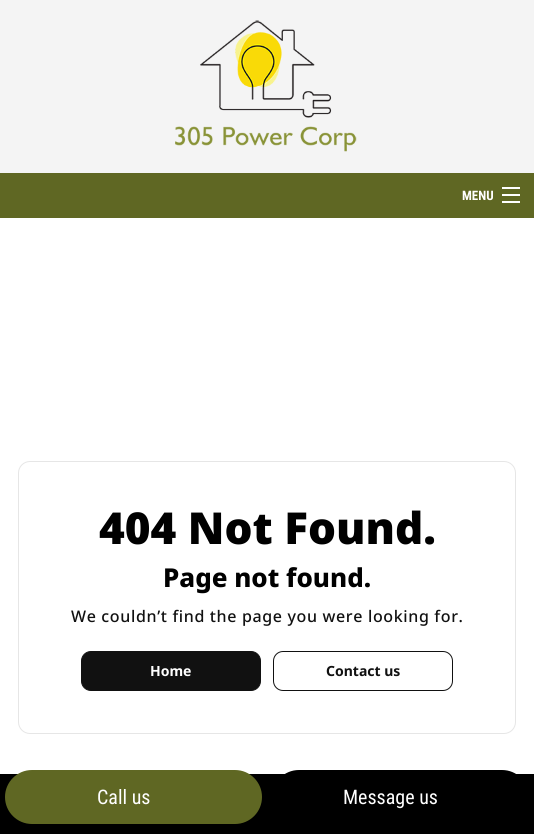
import math
import cairo


def write_spaced(ctx, x, y, s, letter, word):
	ctx.move_to(x, y)
	for ch in s:
		ctx.show_text(ch)
		ctx.rel_move_to(letter + word * (ch == ' '), 0)

def round_path(ctx, x, y, w, h, r):
	ctx.new_sub_path()
	for i, (u, v) in enumerate([(x + w - r, y + h - r), (x + r, y + h - r), (x + r, y + r), (x + w - r, y + r)]):
		ctx.arc(u, v, r, i * math.pi / 2, (i + 1) * math.pi / 2)
	ctx.close_path()

def paste(ctx, path, x, y, w, h):
	ctx.save()
	ctx.set_source_surface(cairo.ImageSurface.create_from_png(path), x, y)
	ctx.rectangle(x, y, w, h)
	ctx.fill()
	ctx.restore()

def draw(ctx):
	ctx.set_source_rgb(1, 1, 1)
	ctx.paint()
	ctx.set_source_rgb(0.957, 0.957, 0.957)
	ctx.rectangle(0, 0, 534, 173)
	ctx.fill()
	paste(ctx, 'media/1.png', 175, 20, 182, 132)
	ctx.set_source_rgb(0.373, 0.404, 0.137)
	ctx.rectangle(0, 173, 534, 45)
	ctx.fill()
	ctx.select_font_face('Roboto Condensed', cairo.FONT_SLANT_NORMAL, cairo.FONT_WEIGHT_BOLD)
	ctx.set_font_size(13)
	ctx.set_source_rgb(1, 1, 1)
	ctx.move_to(462, 200)
	ctx.show_text('MENU')
	ctx.rectangle(502, 201, 18, 2)
	ctx.rectangle(502, 194, 18, 2)
	ctx.rectangle(502, 187, 18, 2)
	ctx.fill()
	round_path(ctx, 18.5, 461.5, 497, 272, 11.5)
	ctx.set_source_rgb(0.902, 0.902, 0.902)
	ctx.set_line_width(1)
	ctx.stroke()
	ctx.select_font_face('Noto Sans Black')
	ctx.set_font_size(44)
	ctx.set_source_rgb(0, 0, 0)
	ctx.move_to(99, 544)
	ctx.show_text('404 Not Found.')
	ctx.select_font_face('Noto Sans ExtraBold')
	ctx.set_font_size(26)
	ctx.move_to(163, 587)
	ctx.show_text('Page not found.')
	ctx.select_font_face('Noto Sans Medium')
	ctx.set_font_size(16)
	ctx.set_source_rgb(0.067, 0.067, 0.067)
	write_spaced(ctx, 71, 622, 'We couldn’t find the page you were looking for.', 0.65, 0)
	round_path(ctx, 81.5, 651.5, 179, 39, 9.5)
	ctx.fill_preserve()
	ctx.stroke()
	ctx.select_font_face('Noto Sans', cairo.FONT_SLANT_NORMAL, cairo.FONT_WEIGHT_BOLD)
	ctx.set_font_size(14)
	ctx.set_source_rgb(1, 1, 1)
	ctx.move_to(150, 676)
	ctx.show_text('Home')
	round_path(ctx, 273.5, 651.5, 179, 39, 9.5)
	ctx.set_source_rgb(0.067, 0.067, 0.067)
	ctx.stroke()
	ctx.move_to(326, 676)
	ctx.show_text('Contact us')
	ctx.set_source_rgb(0, 0, 0)
	ctx.rectangle(0, 774, 534, 60)
	ctx.fill()
	ctx.set_source_rgb(0.373, 0.404, 0.137)
	round_path(ctx, 5, 770, 257, 54, 27)
	ctx.fill()
	ctx.select_font_face('Roboto Condensed')
	ctx.set_font_size(20)
	ctx.set_source_rgb(1, 1, 1)
	ctx.move_to(97, 804)
	ctx.show_text('Call us')
	ctx.set_source_rgb(0, 0, 0)
	round_path(ctx, 272, 770, 257, 54, 27)
	ctx.fill()
	ctx.set_source_rgb(1, 1, 1)
	ctx.move_to(343, 804)
	ctx.show_text('Message us')


surface = cairo.ImageSurface(cairo.FORMAT_RGB24, 534, 834)
ctx = cairo.Context(surface)
options = cairo.FontOptions()
options.set_hint_metrics(cairo.HINT_METRICS_OFF)
options.set_hint_style(cairo.HINT_STYLE_NONE)
ctx.set_font_options(options)
ctx.set_miter_limit(4)
draw(ctx)
surface.write_to_png('image.png')
